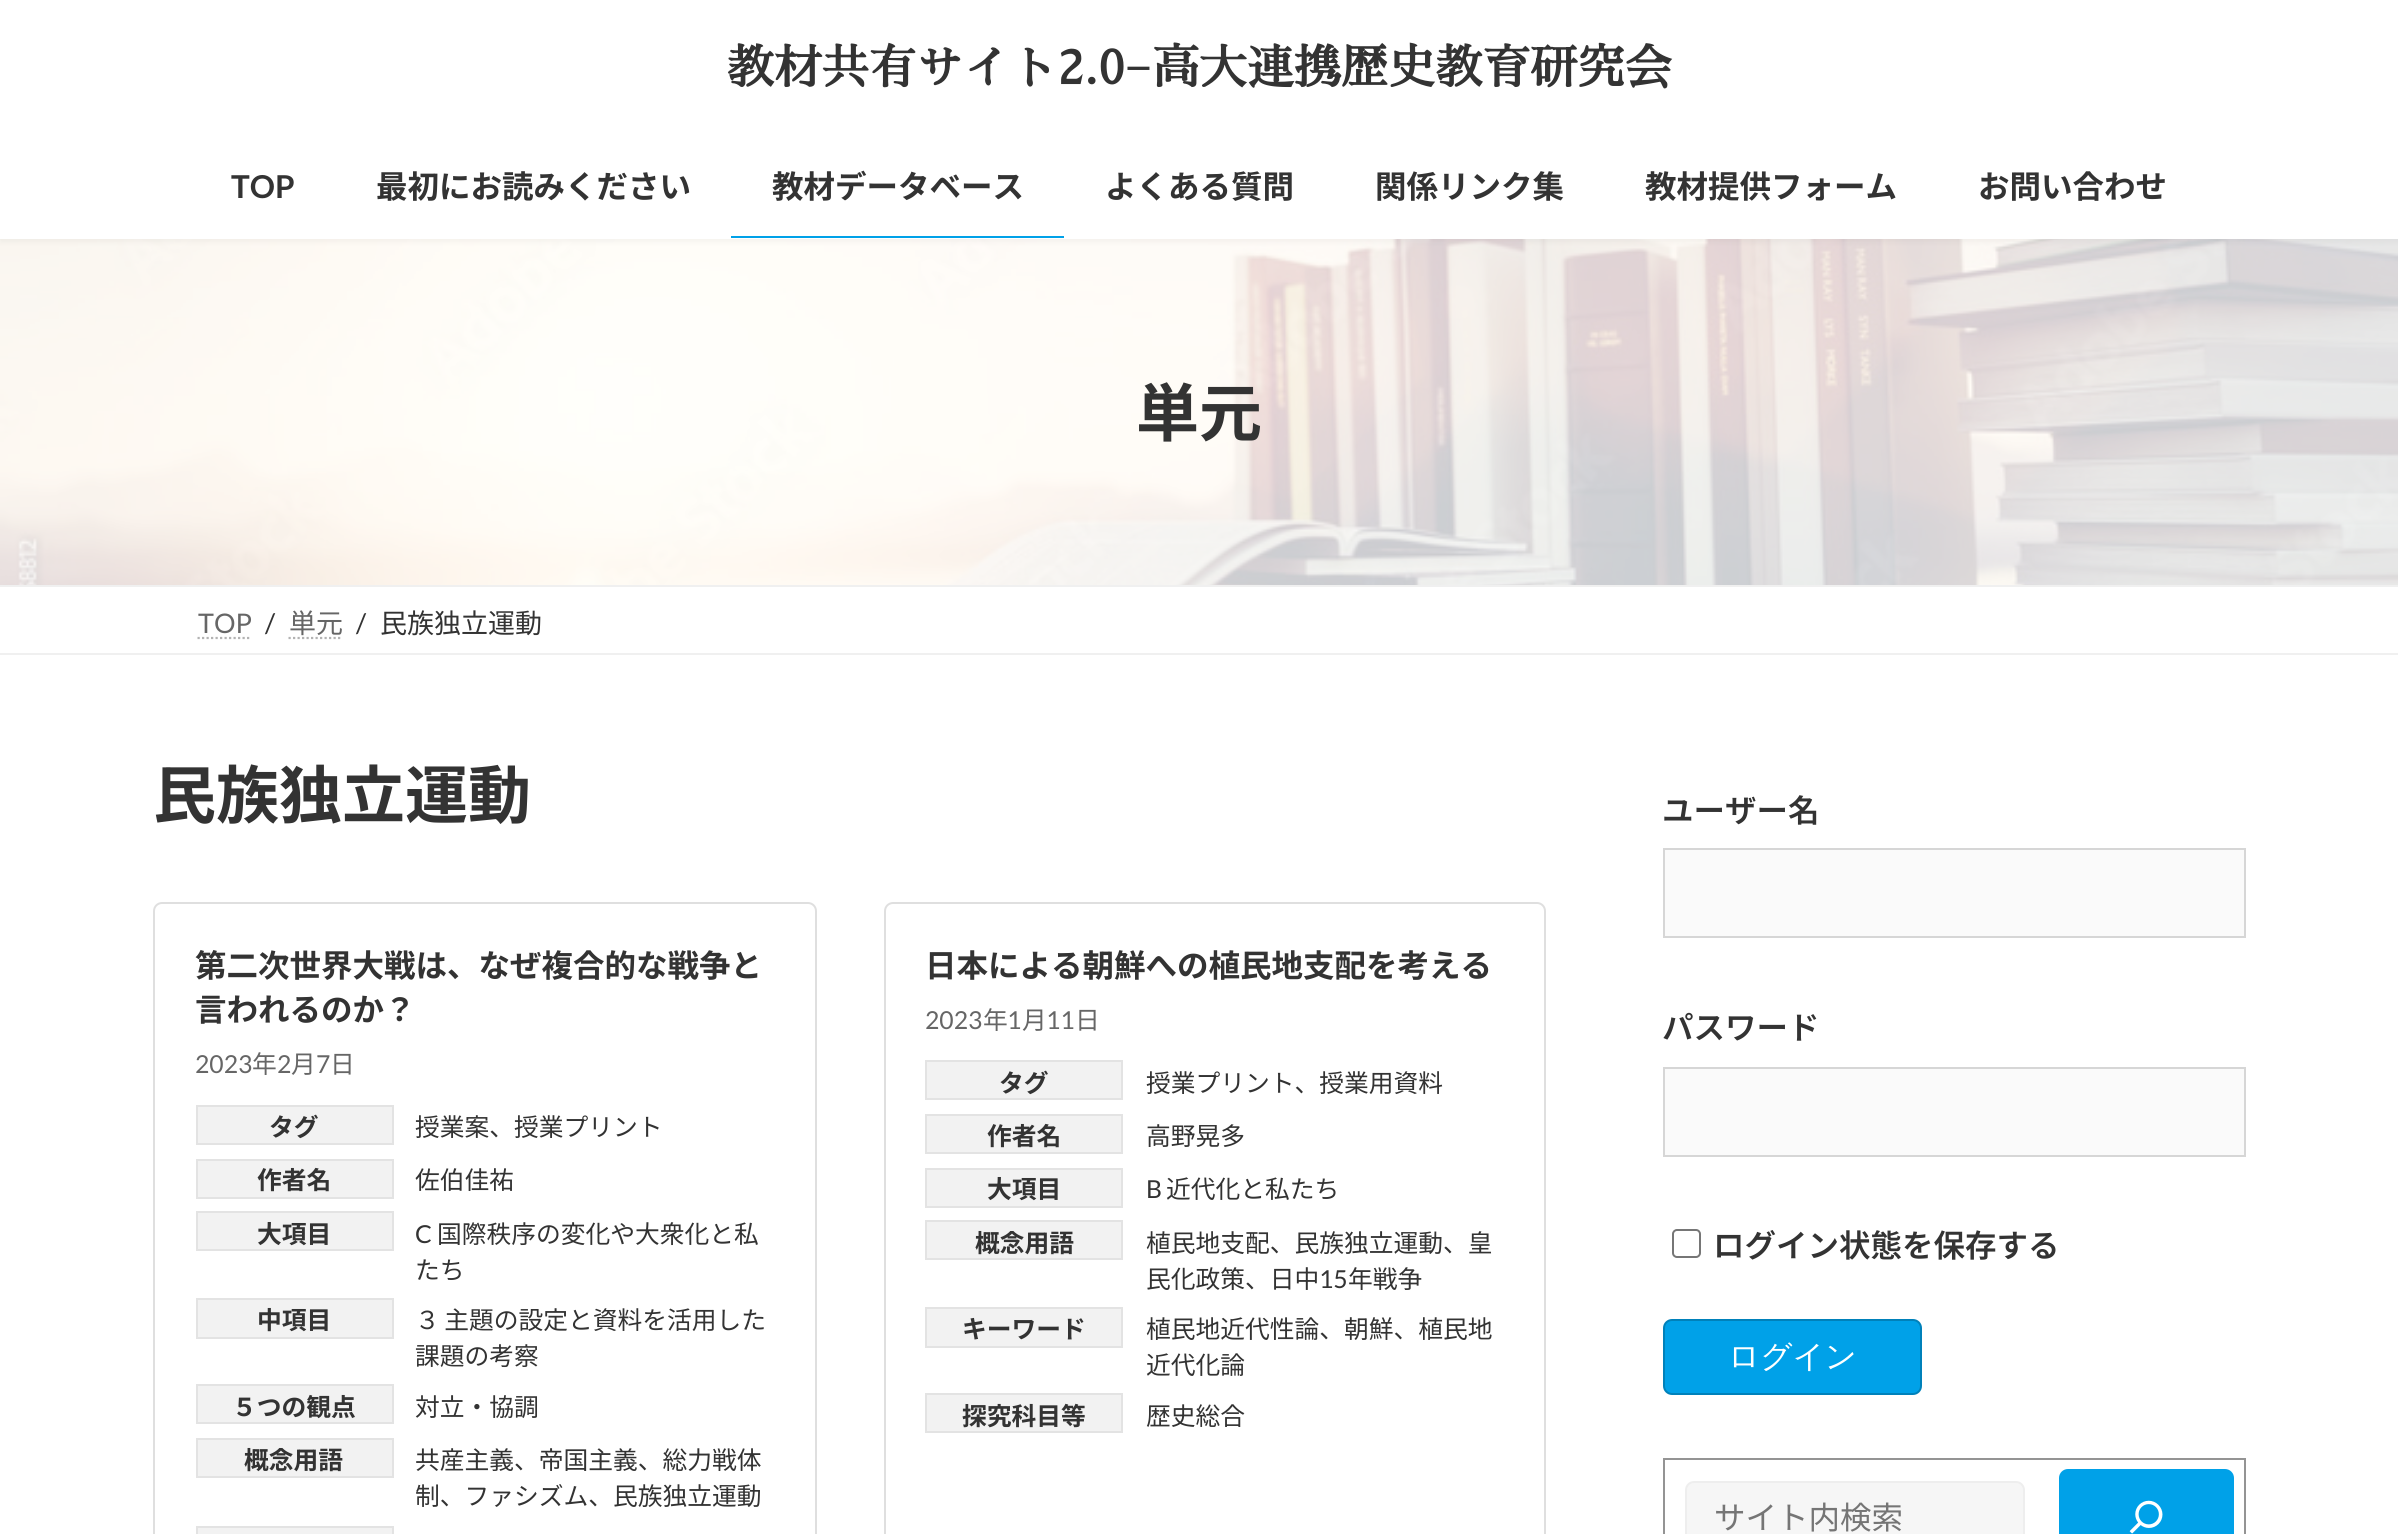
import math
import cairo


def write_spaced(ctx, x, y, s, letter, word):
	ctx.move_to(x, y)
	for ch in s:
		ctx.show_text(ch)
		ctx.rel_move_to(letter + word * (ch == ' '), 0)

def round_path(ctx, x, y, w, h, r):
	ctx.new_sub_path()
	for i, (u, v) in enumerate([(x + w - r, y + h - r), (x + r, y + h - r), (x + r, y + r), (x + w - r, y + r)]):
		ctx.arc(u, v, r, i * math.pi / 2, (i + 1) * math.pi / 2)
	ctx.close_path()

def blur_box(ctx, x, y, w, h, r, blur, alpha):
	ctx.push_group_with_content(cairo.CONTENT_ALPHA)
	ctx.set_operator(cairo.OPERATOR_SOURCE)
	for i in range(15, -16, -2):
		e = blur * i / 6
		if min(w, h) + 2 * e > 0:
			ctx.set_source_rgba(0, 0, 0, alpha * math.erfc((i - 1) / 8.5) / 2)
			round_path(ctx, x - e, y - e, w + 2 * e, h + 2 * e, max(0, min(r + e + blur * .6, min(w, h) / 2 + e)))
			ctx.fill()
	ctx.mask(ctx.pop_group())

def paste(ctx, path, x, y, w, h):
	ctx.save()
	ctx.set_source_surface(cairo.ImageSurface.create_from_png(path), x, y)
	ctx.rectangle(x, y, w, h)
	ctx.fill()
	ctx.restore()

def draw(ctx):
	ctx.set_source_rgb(1, 1, 1)
	ctx.paint()
	paste(ctx, 'media/1.png', 0, 239, 2398, 346)
	ctx.set_source_rgb(0, 0, 0)
	blur_box(ctx, 0, 2, 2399, 239, 0, 3.5, 0.05)
	ctx.set_source_rgb(1, 1, 1)
	ctx.rectangle(0, 0, 2398, 239)
	ctx.fill()
	ctx.select_font_face('Sawarabi Mincho', cairo.FONT_SLANT_NORMAL, cairo.FONT_WEIGHT_BOLD)
	ctx.set_font_size(47.25)
	ctx.set_source_rgb(0.2, 0.2, 0.2)
	ctx.move_to(727, 84)
	ctx.show_text('教材共有サイト2.0')
	ctx.select_font_face('Liberation Serif', cairo.FONT_SLANT_NORMAL, cairo.FONT_WEIGHT_BOLD)
	ctx.move_to(1125, 84)
	ctx.show_text('−')
	ctx.select_font_face('Sawarabi Mincho', cairo.FONT_SLANT_NORMAL, cairo.FONT_WEIGHT_BOLD)
	ctx.move_to(1152, 84)
	ctx.show_text('高大連携歴史教育研究会')
	ctx.select_font_face('Lato', cairo.FONT_SLANT_NORMAL, cairo.FONT_WEIGHT_BOLD)
	ctx.set_font_size(31.5)
	ctx.move_to(231, 198)
	ctx.show_text('TOP')
	ctx.select_font_face('Noto Sans JP', cairo.FONT_SLANT_NORMAL, cairo.FONT_WEIGHT_BOLD)
	ctx.move_to(376, 198)
	ctx.show_text('最初にお読みください')
	ctx.move_to(772, 198)
	ctx.show_text('教材データベース')
	ctx.set_source_rgb(0, 0.631, 0.91)
	ctx.rectangle(731, 236, 333, 2)
	ctx.fill()
	ctx.set_source_rgb(0.2, 0.2, 0.2)
	for x, y, s in [
		(1105, 198, 'よくある質問'),
		(1375, 198, '関係リンク集'),
		(1645, 198, '教材提供フォーム'),
		(1978, 198, 'お問い合わせ'),
	]:
		ctx.move_to(x, y)
		ctx.show_text(s)
	ctx.set_font_size(63)
	ctx.move_to(1136, 436)
	ctx.show_text('単元')
	ctx.set_source_rgb(0.941, 0.941, 0.941)
	ctx.rectangle(0, 585, 2398, 2)
	ctx.fill()
	ctx.rectangle(0, 653, 2398, 2)
	ctx.fill()
	ctx.select_font_face('Lato')
	ctx.set_font_size(27)
	ctx.set_source_rgb(0.4, 0.4, 0.4)
	ctx.move_to(198, 633)
	ctx.show_text('TOP')
	ctx.new_path()
	ctx.move_to(197.5, 638)
	ctx.line_to(251.5, 638)
	ctx.set_source_rgb(0.702, 0.702, 0.702)
	ctx.set_line_width(2.2)
	ctx.set_dash([2.25, 2.25])
	ctx.stroke()
	ctx.set_source_rgb(0.2, 0.2, 0.2)
	ctx.move_to(265, 633)
	ctx.show_text('/')
	ctx.select_font_face('Noto Sans JP')
	ctx.set_source_rgb(0.4, 0.4, 0.4)
	ctx.move_to(289, 633)
	ctx.show_text('単元')
	ctx.new_path()
	ctx.move_to(288.5, 638)
	ctx.line_to(342.5, 638)
	ctx.set_source_rgb(0.702, 0.702, 0.702)
	ctx.stroke()
	ctx.select_font_face('Lato')
	ctx.set_source_rgb(0.2, 0.2, 0.2)
	ctx.move_to(356, 633)
	ctx.show_text('/')
	ctx.select_font_face('Noto Sans JP')
	ctx.move_to(380, 633)
	ctx.show_text('民族独立運動')
	ctx.select_font_face('Noto Sans JP', cairo.FONT_SLANT_NORMAL, cairo.FONT_WEIGHT_BOLD)
	ctx.set_font_size(63)
	ctx.move_to(153, 818)
	ctx.show_text('民族独立運動')
	round_path(ctx, 154, 903, 662, 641, 8)
	ctx.set_source_rgb(0.875, 0.875, 0.875)
	ctx.set_line_width(2)
	ctx.set_dash([])
	ctx.stroke()
	ctx.set_font_size(31.5)
	ctx.set_source_rgb(0.2, 0.2, 0.2)
	ctx.move_to(195, 977)
	ctx.show_text('第二次世界大戦は、なぜ複合的な戦争と')
	ctx.move_to(195, 1021)
	ctx.show_text('言われるのか？')
	ctx.select_font_face('Lato')
	ctx.set_font_size(24.75)
	ctx.set_source_rgb(0.4, 0.4, 0.4)
	ctx.move_to(195, 1073)
	ctx.show_text('2023')
	ctx.select_font_face('Noto Sans JP')
	ctx.move_to(252, 1073)
	ctx.show_text('年')
	ctx.select_font_face('Lato')
	ctx.move_to(277, 1073)
	ctx.show_text('2')
	ctx.select_font_face('Noto Sans JP')
	ctx.move_to(291, 1073)
	ctx.show_text('月')
	ctx.select_font_face('Lato')
	ctx.move_to(316, 1073)
	ctx.show_text('7')
	ctx.select_font_face('Noto Sans JP')
	ctx.move_to(330, 1073)
	ctx.show_text('日')
	ctx.set_source_rgb(0.949, 0.949, 0.949)
	ctx.rectangle(197, 1106, 196, 38)
	ctx.fill_preserve()
	ctx.set_source_rgb(0.89, 0.89, 0.89)
	ctx.stroke()
	ctx.select_font_face('Noto Sans JP', cairo.FONT_SLANT_NORMAL, cairo.FONT_WEIGHT_BOLD)
	ctx.set_source_rgb(0.2, 0.2, 0.2)
	ctx.move_to(269, 1136)
	ctx.show_text('タグ')
	ctx.select_font_face('Noto Sans JP')
	ctx.move_to(415, 1136)
	ctx.show_text('授業案、授業プリント')
	ctx.set_source_rgb(0.949, 0.949, 0.949)
	ctx.rectangle(197, 1160, 196, 38)
	ctx.fill_preserve()
	ctx.set_source_rgb(0.89, 0.89, 0.89)
	ctx.stroke()
	ctx.select_font_face('Noto Sans JP', cairo.FONT_SLANT_NORMAL, cairo.FONT_WEIGHT_BOLD)
	ctx.set_source_rgb(0.2, 0.2, 0.2)
	ctx.move_to(257, 1189)
	ctx.show_text('作者名')
	ctx.select_font_face('Noto Sans JP')
	ctx.move_to(415, 1189)
	ctx.show_text('佐伯佳祐')
	ctx.set_source_rgb(0.949, 0.949, 0.949)
	ctx.rectangle(197, 1212, 196, 38)
	ctx.fill_preserve()
	ctx.set_source_rgb(0.89, 0.89, 0.89)
	ctx.stroke()
	ctx.select_font_face('Noto Sans JP', cairo.FONT_SLANT_NORMAL, cairo.FONT_WEIGHT_BOLD)
	ctx.set_source_rgb(0.2, 0.2, 0.2)
	ctx.move_to(257, 1243)
	ctx.show_text('大項目')
	ctx.select_font_face('Lato')
	ctx.move_to(415, 1243)
	ctx.show_text('C')
	ctx.select_font_face('Noto Sans JP')
	ctx.move_to(437, 1243)
	ctx.show_text('国際秩序の変化や大衆化と私')
	ctx.move_to(415, 1279)
	ctx.show_text('たち')
	ctx.set_source_rgb(0.949, 0.949, 0.949)
	ctx.rectangle(197, 1299, 196, 39)
	ctx.fill_preserve()
	ctx.set_source_rgb(0.89, 0.89, 0.89)
	ctx.stroke()
	ctx.select_font_face('Noto Sans JP', cairo.FONT_SLANT_NORMAL, cairo.FONT_WEIGHT_BOLD)
	ctx.set_source_rgb(0.2, 0.2, 0.2)
	ctx.move_to(257, 1329)
	ctx.show_text('中項目')
	ctx.select_font_face('Noto Sans JP')
	write_spaced(ctx, 415, 1329, '３ 主題の設定と資料を活用した', 0, -1)
	ctx.move_to(415, 1365)
	ctx.show_text('課題の考察')
	ctx.set_source_rgb(0.949, 0.949, 0.949)
	ctx.rectangle(197, 1385, 196, 38)
	ctx.fill_preserve()
	ctx.set_source_rgb(0.89, 0.89, 0.89)
	ctx.stroke()
	ctx.select_font_face('Noto Sans JP', cairo.FONT_SLANT_NORMAL, cairo.FONT_WEIGHT_BOLD)
	ctx.set_source_rgb(0.2, 0.2, 0.2)
	ctx.move_to(232, 1416)
	ctx.show_text('５つの観点')
	ctx.select_font_face('Noto Sans JP')
	ctx.move_to(415, 1416)
	ctx.show_text('対立・協調')
	ctx.set_source_rgb(0.949, 0.949, 0.949)
	ctx.rectangle(197, 1439, 196, 38)
	ctx.fill_preserve()
	ctx.set_source_rgb(0.89, 0.89, 0.89)
	ctx.stroke()
	ctx.select_font_face('Noto Sans JP', cairo.FONT_SLANT_NORMAL, cairo.FONT_WEIGHT_BOLD)
	ctx.set_source_rgb(0.2, 0.2, 0.2)
	ctx.move_to(244, 1469)
	ctx.show_text('概念用語')
	ctx.select_font_face('Noto Sans JP')
	ctx.move_to(415, 1469)
	ctx.show_text('共産主義、帝国主義、総力戦体')
	ctx.move_to(415, 1505)
	ctx.show_text('制、ファシズム、民族独立運動')
	ctx.set_source_rgb(0.949, 0.949, 0.949)
	ctx.rectangle(197, 1527, 196, 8)
	ctx.fill_preserve()
	ctx.set_source_rgb(0.89, 0.89, 0.89)
	ctx.stroke()
	round_path(ctx, 885, 903, 660, 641, 8)
	ctx.set_source_rgb(0.875, 0.875, 0.875)
	ctx.stroke()
	ctx.select_font_face('Noto Sans JP', cairo.FONT_SLANT_NORMAL, cairo.FONT_WEIGHT_BOLD)
	ctx.set_font_size(31.5)
	ctx.set_source_rgb(0.2, 0.2, 0.2)
	ctx.move_to(925, 977)
	ctx.show_text('日本による朝鮮への植民地支配を考える')
	ctx.select_font_face('Lato')
	ctx.set_font_size(24.75)
	ctx.set_source_rgb(0.4, 0.4, 0.4)
	ctx.move_to(925, 1029)
	ctx.show_text('2023')
	ctx.select_font_face('Noto Sans JP')
	ctx.move_to(983, 1029)
	ctx.show_text('年')
	ctx.select_font_face('Lato')
	ctx.move_to(1007, 1029)
	ctx.show_text('1')
	ctx.select_font_face('Noto Sans JP')
	ctx.move_to(1022, 1029)
	ctx.show_text('月')
	ctx.select_font_face('Lato')
	ctx.move_to(1046, 1029)
	ctx.show_text('11')
	ctx.select_font_face('Noto Sans JP')
	ctx.move_to(1075, 1029)
	ctx.show_text('日')
	ctx.set_source_rgb(0.949, 0.949, 0.949)
	ctx.rectangle(926, 1061, 196, 38)
	ctx.fill_preserve()
	ctx.set_source_rgb(0.89, 0.89, 0.89)
	ctx.stroke()
	ctx.select_font_face('Noto Sans JP', cairo.FONT_SLANT_NORMAL, cairo.FONT_WEIGHT_BOLD)
	ctx.set_source_rgb(0.2, 0.2, 0.2)
	ctx.move_to(999, 1092)
	ctx.show_text('タグ')
	ctx.select_font_face('Noto Sans JP')
	ctx.move_to(1146, 1092)
	ctx.show_text('授業プリント、授業用資料')
	ctx.set_source_rgb(0.949, 0.949, 0.949)
	ctx.rectangle(926, 1115, 196, 38)
	ctx.fill_preserve()
	ctx.set_source_rgb(0.89, 0.89, 0.89)
	ctx.stroke()
	ctx.select_font_face('Noto Sans JP', cairo.FONT_SLANT_NORMAL, cairo.FONT_WEIGHT_BOLD)
	ctx.set_source_rgb(0.2, 0.2, 0.2)
	ctx.move_to(987, 1145)
	ctx.show_text('作者名')
	ctx.select_font_face('Noto Sans JP')
	ctx.move_to(1146, 1145)
	ctx.show_text('高野晃多')
	ctx.set_source_rgb(0.949, 0.949, 0.949)
	ctx.rectangle(926, 1169, 196, 38)
	ctx.fill_preserve()
	ctx.set_source_rgb(0.89, 0.89, 0.89)
	ctx.stroke()
	ctx.select_font_face('Noto Sans JP', cairo.FONT_SLANT_NORMAL, cairo.FONT_WEIGHT_BOLD)
	ctx.set_source_rgb(0.2, 0.2, 0.2)
	ctx.move_to(987, 1198)
	ctx.show_text('大項目')
	ctx.select_font_face('Lato')
	ctx.move_to(1146, 1198)
	ctx.show_text('B')
	ctx.select_font_face('Noto Sans JP')
	ctx.move_to(1166, 1198)
	ctx.show_text('近代化と私たち')
	ctx.set_source_rgb(0.949, 0.949, 0.949)
	ctx.rectangle(926, 1221, 196, 38)
	ctx.fill_preserve()
	ctx.set_source_rgb(0.89, 0.89, 0.89)
	ctx.stroke()
	ctx.select_font_face('Noto Sans JP', cairo.FONT_SLANT_NORMAL, cairo.FONT_WEIGHT_BOLD)
	ctx.set_source_rgb(0.2, 0.2, 0.2)
	ctx.move_to(975, 1252)
	ctx.show_text('概念用語')
	ctx.select_font_face('Noto Sans JP')
	ctx.move_to(1146, 1252)
	ctx.show_text('植民地支配、民族独立運動、皇')
	ctx.move_to(1146, 1288)
	ctx.show_text('民化政策、日中')
	ctx.select_font_face('Lato')
	ctx.move_to(1319, 1288)
	ctx.show_text('15')
	ctx.select_font_face('Noto Sans JP')
	ctx.move_to(1348, 1288)
	ctx.show_text('年戦争')
	ctx.set_source_rgb(0.949, 0.949, 0.949)
	ctx.rectangle(926, 1308, 196, 39)
	ctx.fill_preserve()
	ctx.set_source_rgb(0.89, 0.89, 0.89)
	ctx.stroke()
	ctx.select_font_face('Noto Sans JP', cairo.FONT_SLANT_NORMAL, cairo.FONT_WEIGHT_BOLD)
	ctx.set_source_rgb(0.2, 0.2, 0.2)
	ctx.move_to(962, 1338)
	ctx.show_text('キーワード')
	ctx.select_font_face('Noto Sans JP')
	ctx.move_to(1146, 1338)
	ctx.show_text('植民地近代性論、朝鮮、植民地')
	ctx.move_to(1146, 1374)
	ctx.show_text('近代化論')
	ctx.set_source_rgb(0.949, 0.949, 0.949)
	ctx.rectangle(926, 1394, 196, 38)
	ctx.fill_preserve()
	ctx.set_source_rgb(0.89, 0.89, 0.89)
	ctx.stroke()
	ctx.select_font_face('Noto Sans JP', cairo.FONT_SLANT_NORMAL, cairo.FONT_WEIGHT_BOLD)
	ctx.set_source_rgb(0.2, 0.2, 0.2)
	ctx.move_to(962, 1425)
	ctx.show_text('探究科目等')
	ctx.select_font_face('Noto Sans JP')
	ctx.move_to(1146, 1425)
	ctx.show_text('歴史総合')
	ctx.select_font_face('Noto Sans JP SemiBold')
	ctx.set_font_size(31.5)
	ctx.move_to(1662, 822)
	ctx.show_text('ユーザー名')
	ctx.set_source_rgb(0.98, 0.98, 0.98)
	ctx.rectangle(1664, 849, 581, 88)
	ctx.fill_preserve()
	ctx.set_source_rgb(0.839, 0.839, 0.839)
	ctx.stroke()
	ctx.set_source_rgb(0.2, 0.2, 0.2)
	ctx.move_to(1662, 1039)
	ctx.show_text('パスワード')
	ctx.set_source_rgb(0.98, 0.98, 0.98)
	ctx.rectangle(1664, 1068, 581, 88)
	ctx.fill_preserve()
	ctx.set_source_rgb(0.839, 0.839, 0.839)
	ctx.stroke()
	round_path(ctx, 1673, 1230, 27, 27, 4)
	ctx.set_source_rgb(0.463, 0.463, 0.463)
	ctx.stroke()
	ctx.set_source_rgb(0.2, 0.2, 0.2)
	ctx.move_to(1713, 1257)
	ctx.show_text('ログイン状態を保存する')
	ctx.set_source_rgb(0, 0.631, 0.91)
	round_path(ctx, 1664, 1320, 257, 74, 8)
	ctx.fill_preserve()
	ctx.set_source_rgb(0, 0.506, 0.729)
	ctx.stroke()
	ctx.select_font_face('WenQuanYi Zen Hei Medium')
	ctx.set_source_rgb(1, 1, 1)
	ctx.move_to(1728, 1367)
	ctx.show_text('ログイン')
	ctx.rectangle(1664, 1459, 581, 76)
	ctx.set_source_rgb(0.58, 0.58, 0.58)
	ctx.stroke()
	ctx.set_source_rgb(0.961, 0.961, 0.961)
	round_path(ctx, 1686, 1482, 338, 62, 8)
	ctx.fill_preserve()
	ctx.set_source_rgb(0.933, 0.933, 0.933)
	ctx.stroke()
	ctx.select_font_face('Noto Sans JP')
	ctx.set_source_rgb(0.459, 0.459, 0.459)
	ctx.move_to(1714, 1529)
	ctx.show_text('サイト内検索')
	ctx.set_source_rgb(0, 0.631, 0.91)
	round_path(ctx, 2059, 1469, 175, 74, 9)
	ctx.fill()
	paste(ctx, 'media/2.png', 2129, 1500, 34, 34)


surface = cairo.ImageSurface(cairo.FORMAT_RGB24, 2398, 1534)
ctx = cairo.Context(surface)
options = cairo.FontOptions()
options.set_hint_metrics(cairo.HINT_METRICS_OFF)
options.set_hint_style(cairo.HINT_STYLE_NONE)
ctx.set_font_options(options)
ctx.set_miter_limit(4)
draw(ctx)
surface.write_to_png('image.png')
